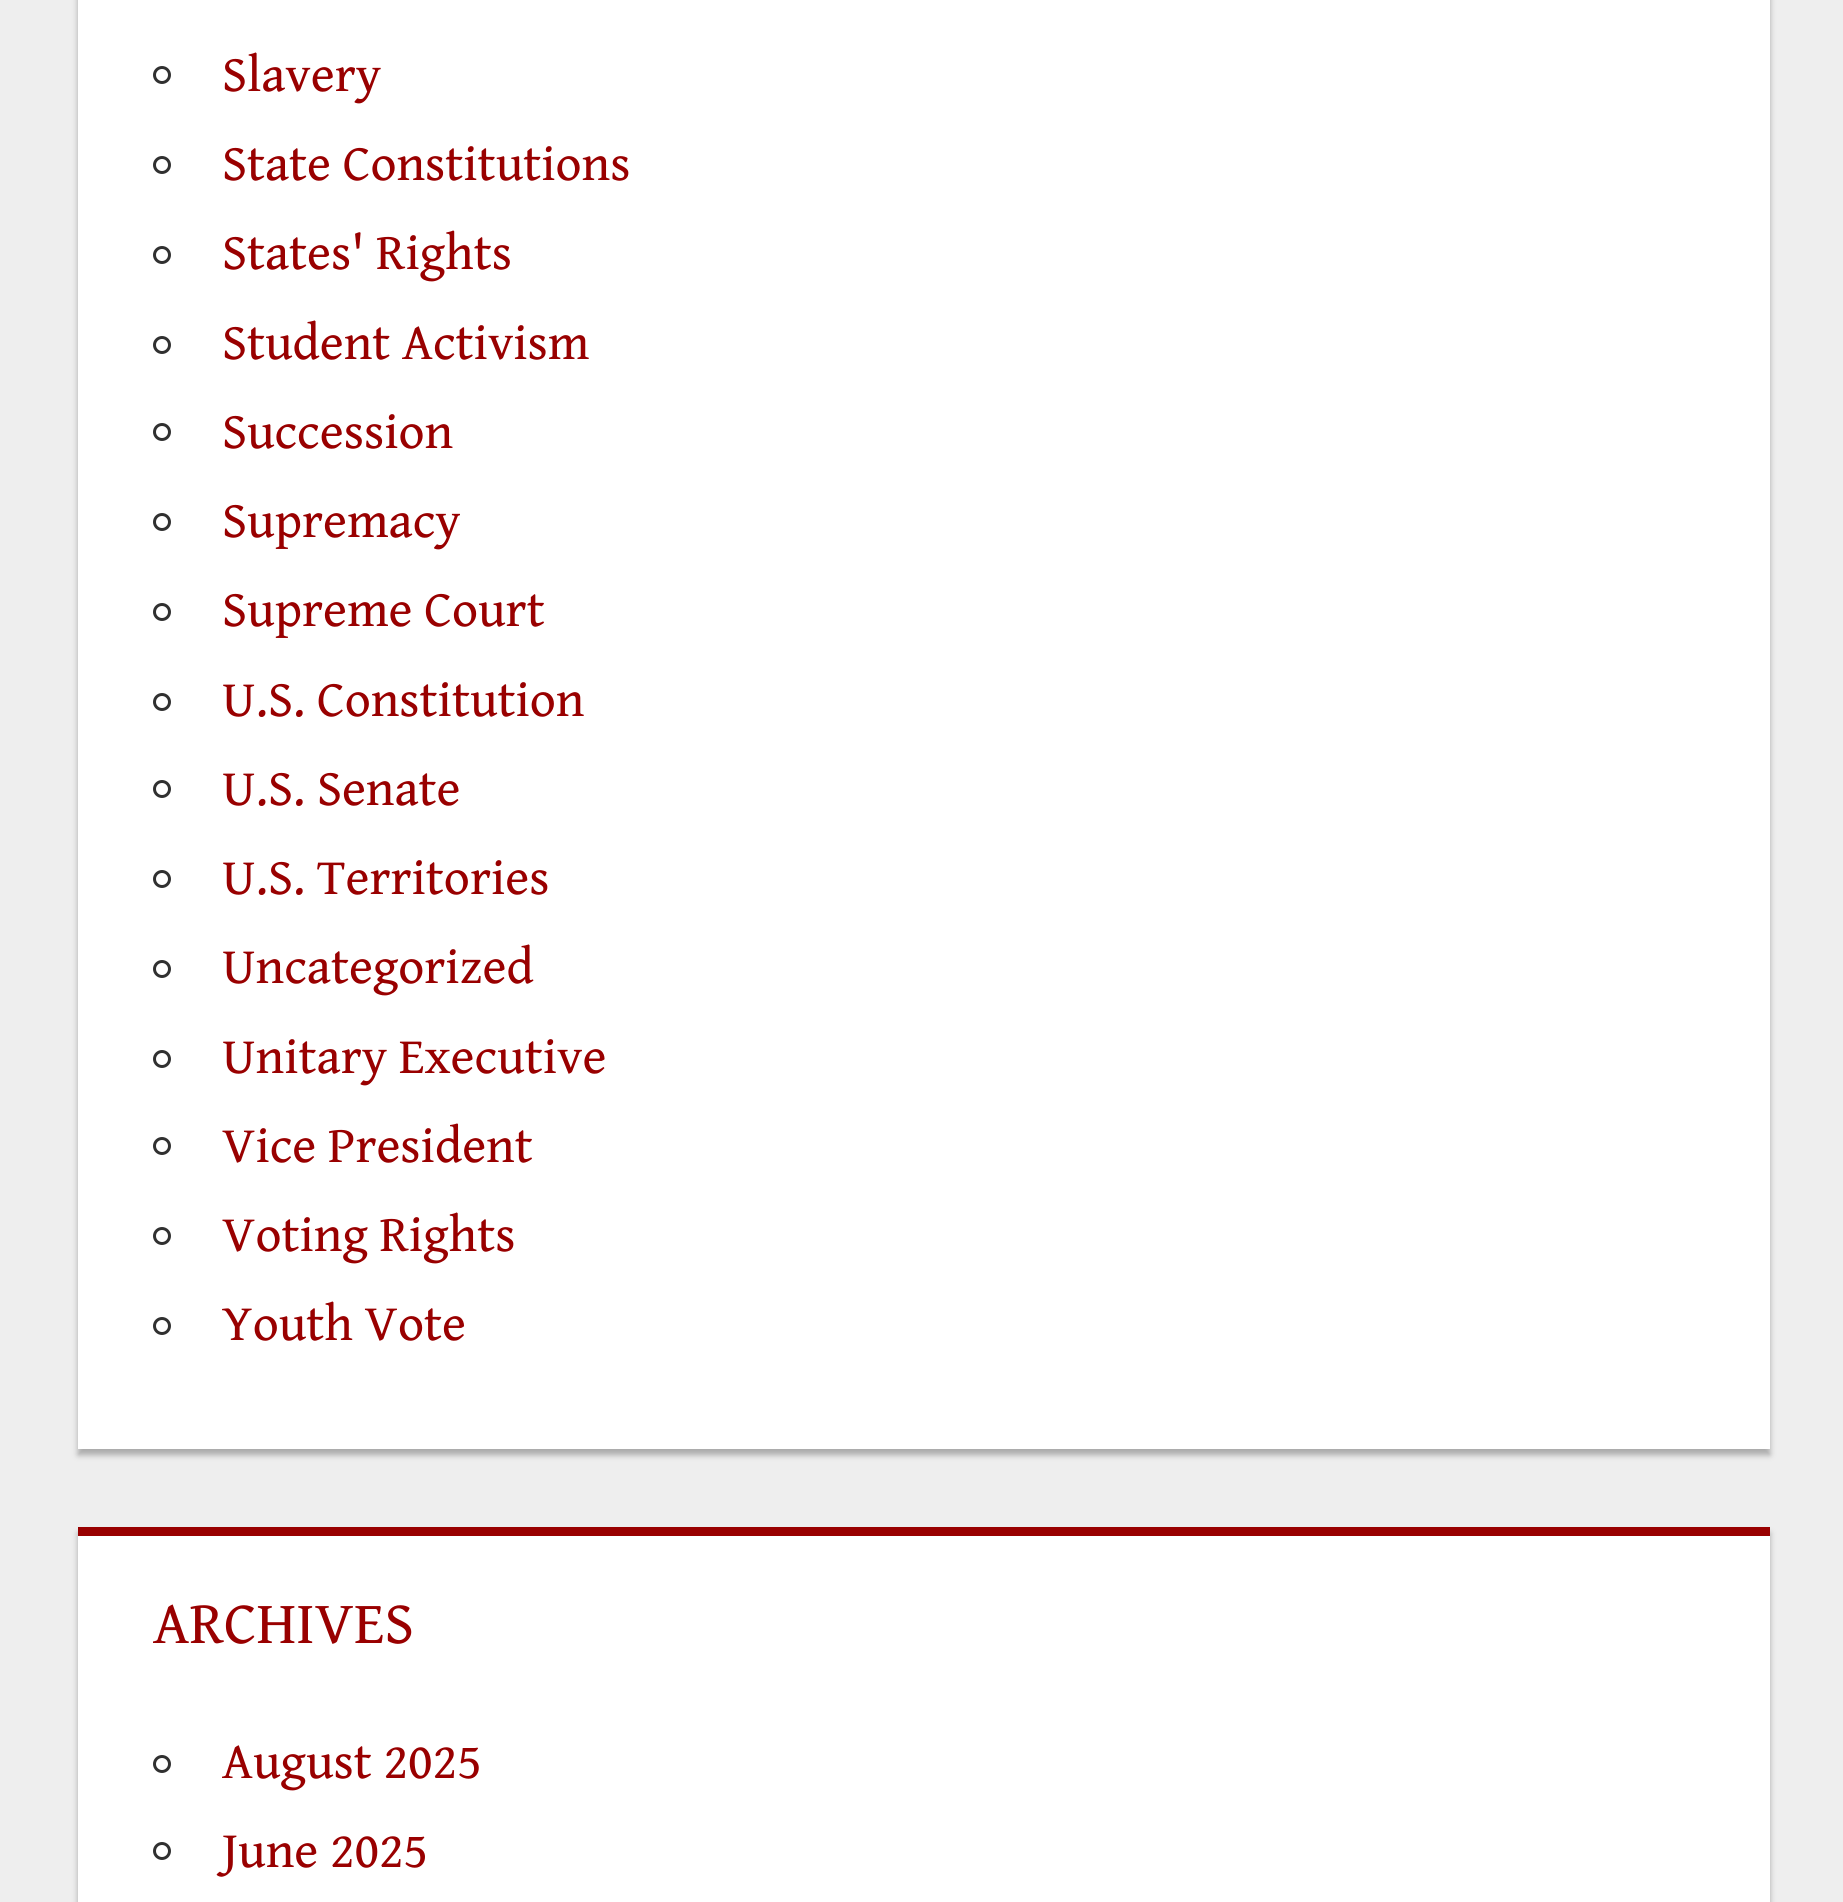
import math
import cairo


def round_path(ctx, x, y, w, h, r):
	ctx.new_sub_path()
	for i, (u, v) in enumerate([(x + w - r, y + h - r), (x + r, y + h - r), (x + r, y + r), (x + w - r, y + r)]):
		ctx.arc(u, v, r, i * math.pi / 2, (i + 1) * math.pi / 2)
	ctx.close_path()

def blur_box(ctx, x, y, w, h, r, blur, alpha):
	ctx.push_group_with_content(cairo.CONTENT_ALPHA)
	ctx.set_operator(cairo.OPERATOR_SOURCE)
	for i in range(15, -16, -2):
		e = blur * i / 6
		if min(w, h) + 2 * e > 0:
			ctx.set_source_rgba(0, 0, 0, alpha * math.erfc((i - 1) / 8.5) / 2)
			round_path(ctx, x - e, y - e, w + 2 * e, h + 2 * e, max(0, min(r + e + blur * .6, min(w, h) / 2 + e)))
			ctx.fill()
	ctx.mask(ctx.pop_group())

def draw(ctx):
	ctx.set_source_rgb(0.933, 0.933, 0.933)
	ctx.paint()
	ctx.set_source_rgb(0.667, 0.667, 0.667)
	blur_box(ctx, 78, -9, 1692, 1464, 0, 3, 1)
	ctx.set_source_rgb(1, 1, 1)
	ctx.rectangle(78, 0, 1692, 1449)
	ctx.fill()
	ctx.arc(162, 75, 7.5, 0, 2 * math.pi)
	ctx.set_source_rgb(0.188, 0.188, 0.188)
	ctx.set_line_width(3)
	ctx.stroke()
	ctx.select_font_face('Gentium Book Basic')
	ctx.set_font_size(51)
	ctx.set_source_rgb(0.6, 0, 0)
	ctx.move_to(222, 91)
	ctx.show_text('Slavery')
	ctx.new_path()
	ctx.arc(162, 165, 7.5, 0, 2 * math.pi)
	ctx.set_source_rgb(0.188, 0.188, 0.188)
	ctx.stroke()
	ctx.set_source_rgb(0.6, 0, 0)
	ctx.move_to(222, 180)
	ctx.show_text('State Constitutions')
	ctx.new_path()
	ctx.arc(162, 255, 7.5, 0, 2 * math.pi)
	ctx.set_source_rgb(0.188, 0.188, 0.188)
	ctx.stroke()
	ctx.set_source_rgb(0.6, 0, 0)
	ctx.move_to(222, 269)
	ctx.show_text('States\' Rights')
	ctx.new_path()
	ctx.arc(162, 345, 7.5, 0, 2 * math.pi)
	ctx.set_source_rgb(0.188, 0.188, 0.188)
	ctx.stroke()
	ctx.set_source_rgb(0.6, 0, 0)
	ctx.move_to(222, 359)
	ctx.show_text('Student Activism')
	ctx.new_path()
	ctx.arc(162, 432, 7.5, 0, 2 * math.pi)
	ctx.set_source_rgb(0.188, 0.188, 0.188)
	ctx.stroke()
	ctx.set_source_rgb(0.6, 0, 0)
	ctx.move_to(222, 448)
	ctx.show_text('Succession')
	ctx.new_path()
	ctx.arc(162, 522, 7.5, 0, 2 * math.pi)
	ctx.set_source_rgb(0.188, 0.188, 0.188)
	ctx.stroke()
	ctx.set_source_rgb(0.6, 0, 0)
	ctx.move_to(222, 537)
	ctx.show_text('Supremacy')
	ctx.new_path()
	ctx.arc(162, 612, 7.5, 0, 2 * math.pi)
	ctx.set_source_rgb(0.188, 0.188, 0.188)
	ctx.stroke()
	ctx.set_source_rgb(0.6, 0, 0)
	ctx.move_to(222, 626)
	ctx.show_text('Supreme Court')
	ctx.new_path()
	ctx.arc(162, 702, 7.5, 0, 2 * math.pi)
	ctx.set_source_rgb(0.188, 0.188, 0.188)
	ctx.stroke()
	ctx.set_source_rgb(0.6, 0, 0)
	ctx.move_to(222, 716)
	ctx.show_text('U.S. Constitution')
	ctx.new_path()
	ctx.arc(162, 789, 7.5, 0, 2 * math.pi)
	ctx.set_source_rgb(0.188, 0.188, 0.188)
	ctx.stroke()
	ctx.set_source_rgb(0.6, 0, 0)
	ctx.move_to(222, 805)
	ctx.show_text('U.S. Senate')
	ctx.new_path()
	ctx.arc(162, 879, 7.5, 0, 2 * math.pi)
	ctx.set_source_rgb(0.188, 0.188, 0.188)
	ctx.stroke()
	ctx.set_source_rgb(0.6, 0, 0)
	ctx.move_to(222, 894)
	ctx.show_text('U.S. Territories')
	ctx.new_path()
	ctx.arc(162, 969, 7.5, 0, 2 * math.pi)
	ctx.set_source_rgb(0.188, 0.188, 0.188)
	ctx.stroke()
	ctx.set_source_rgb(0.6, 0, 0)
	ctx.move_to(222, 983)
	ctx.show_text('Uncategorized')
	ctx.new_path()
	ctx.arc(162, 1059, 7.5, 0, 2 * math.pi)
	ctx.set_source_rgb(0.188, 0.188, 0.188)
	ctx.stroke()
	ctx.set_source_rgb(0.6, 0, 0)
	ctx.move_to(222, 1073)
	ctx.show_text('Unitary Executive')
	ctx.new_path()
	ctx.arc(162, 1146, 7.5, 0, 2 * math.pi)
	ctx.set_source_rgb(0.188, 0.188, 0.188)
	ctx.stroke()
	ctx.set_source_rgb(0.6, 0, 0)
	ctx.move_to(222, 1162)
	ctx.show_text('Vice President')
	ctx.new_path()
	ctx.arc(162, 1236, 7.5, 0, 2 * math.pi)
	ctx.set_source_rgb(0.188, 0.188, 0.188)
	ctx.stroke()
	ctx.set_source_rgb(0.6, 0, 0)
	ctx.move_to(222, 1251)
	ctx.show_text('Voting Rights')
	ctx.new_path()
	ctx.arc(162, 1326, 7.5, 0, 2 * math.pi)
	ctx.set_source_rgb(0.188, 0.188, 0.188)
	ctx.stroke()
	ctx.set_source_rgb(0.6, 0, 0)
	ctx.move_to(222, 1340)
	ctx.show_text('Youth Vote')
	ctx.set_source_rgb(0.667, 0.667, 0.667)
	blur_box(ctx, 78, 1533, 1692, 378, 0, 3, 1)
	ctx.set_source_rgb(1, 1, 1)
	ctx.rectangle(78, 1536, 1692, 366)
	ctx.fill()
	ctx.set_source_rgb(0.6, 0, 0)
	ctx.rectangle(78, 1527, 1692, 9)
	ctx.fill()
	ctx.set_font_size(60)
	ctx.move_to(153, 1643)
	ctx.show_text('ARCHIVES')
	ctx.new_path()
	ctx.arc(162, 1764, 7.5, 0, 2 * math.pi)
	ctx.set_source_rgb(0.188, 0.188, 0.188)
	ctx.stroke()
	ctx.set_font_size(51)
	ctx.set_source_rgb(0.6, 0, 0)
	ctx.move_to(222, 1778)
	ctx.show_text('August 2025')
	ctx.new_path()
	ctx.arc(162, 1851, 7.5, 0, 2 * math.pi)
	ctx.set_source_rgb(0.188, 0.188, 0.188)
	ctx.stroke()
	ctx.set_source_rgb(0.6, 0, 0)
	ctx.move_to(222, 1867)
	ctx.show_text('June 2025')


surface = cairo.ImageSurface(cairo.FORMAT_RGB24, 1843, 1902)
ctx = cairo.Context(surface)
options = cairo.FontOptions()
options.set_hint_metrics(cairo.HINT_METRICS_OFF)
options.set_hint_style(cairo.HINT_STYLE_NONE)
ctx.set_font_options(options)
ctx.set_miter_limit(4)
draw(ctx)
surface.write_to_png('image.png')
